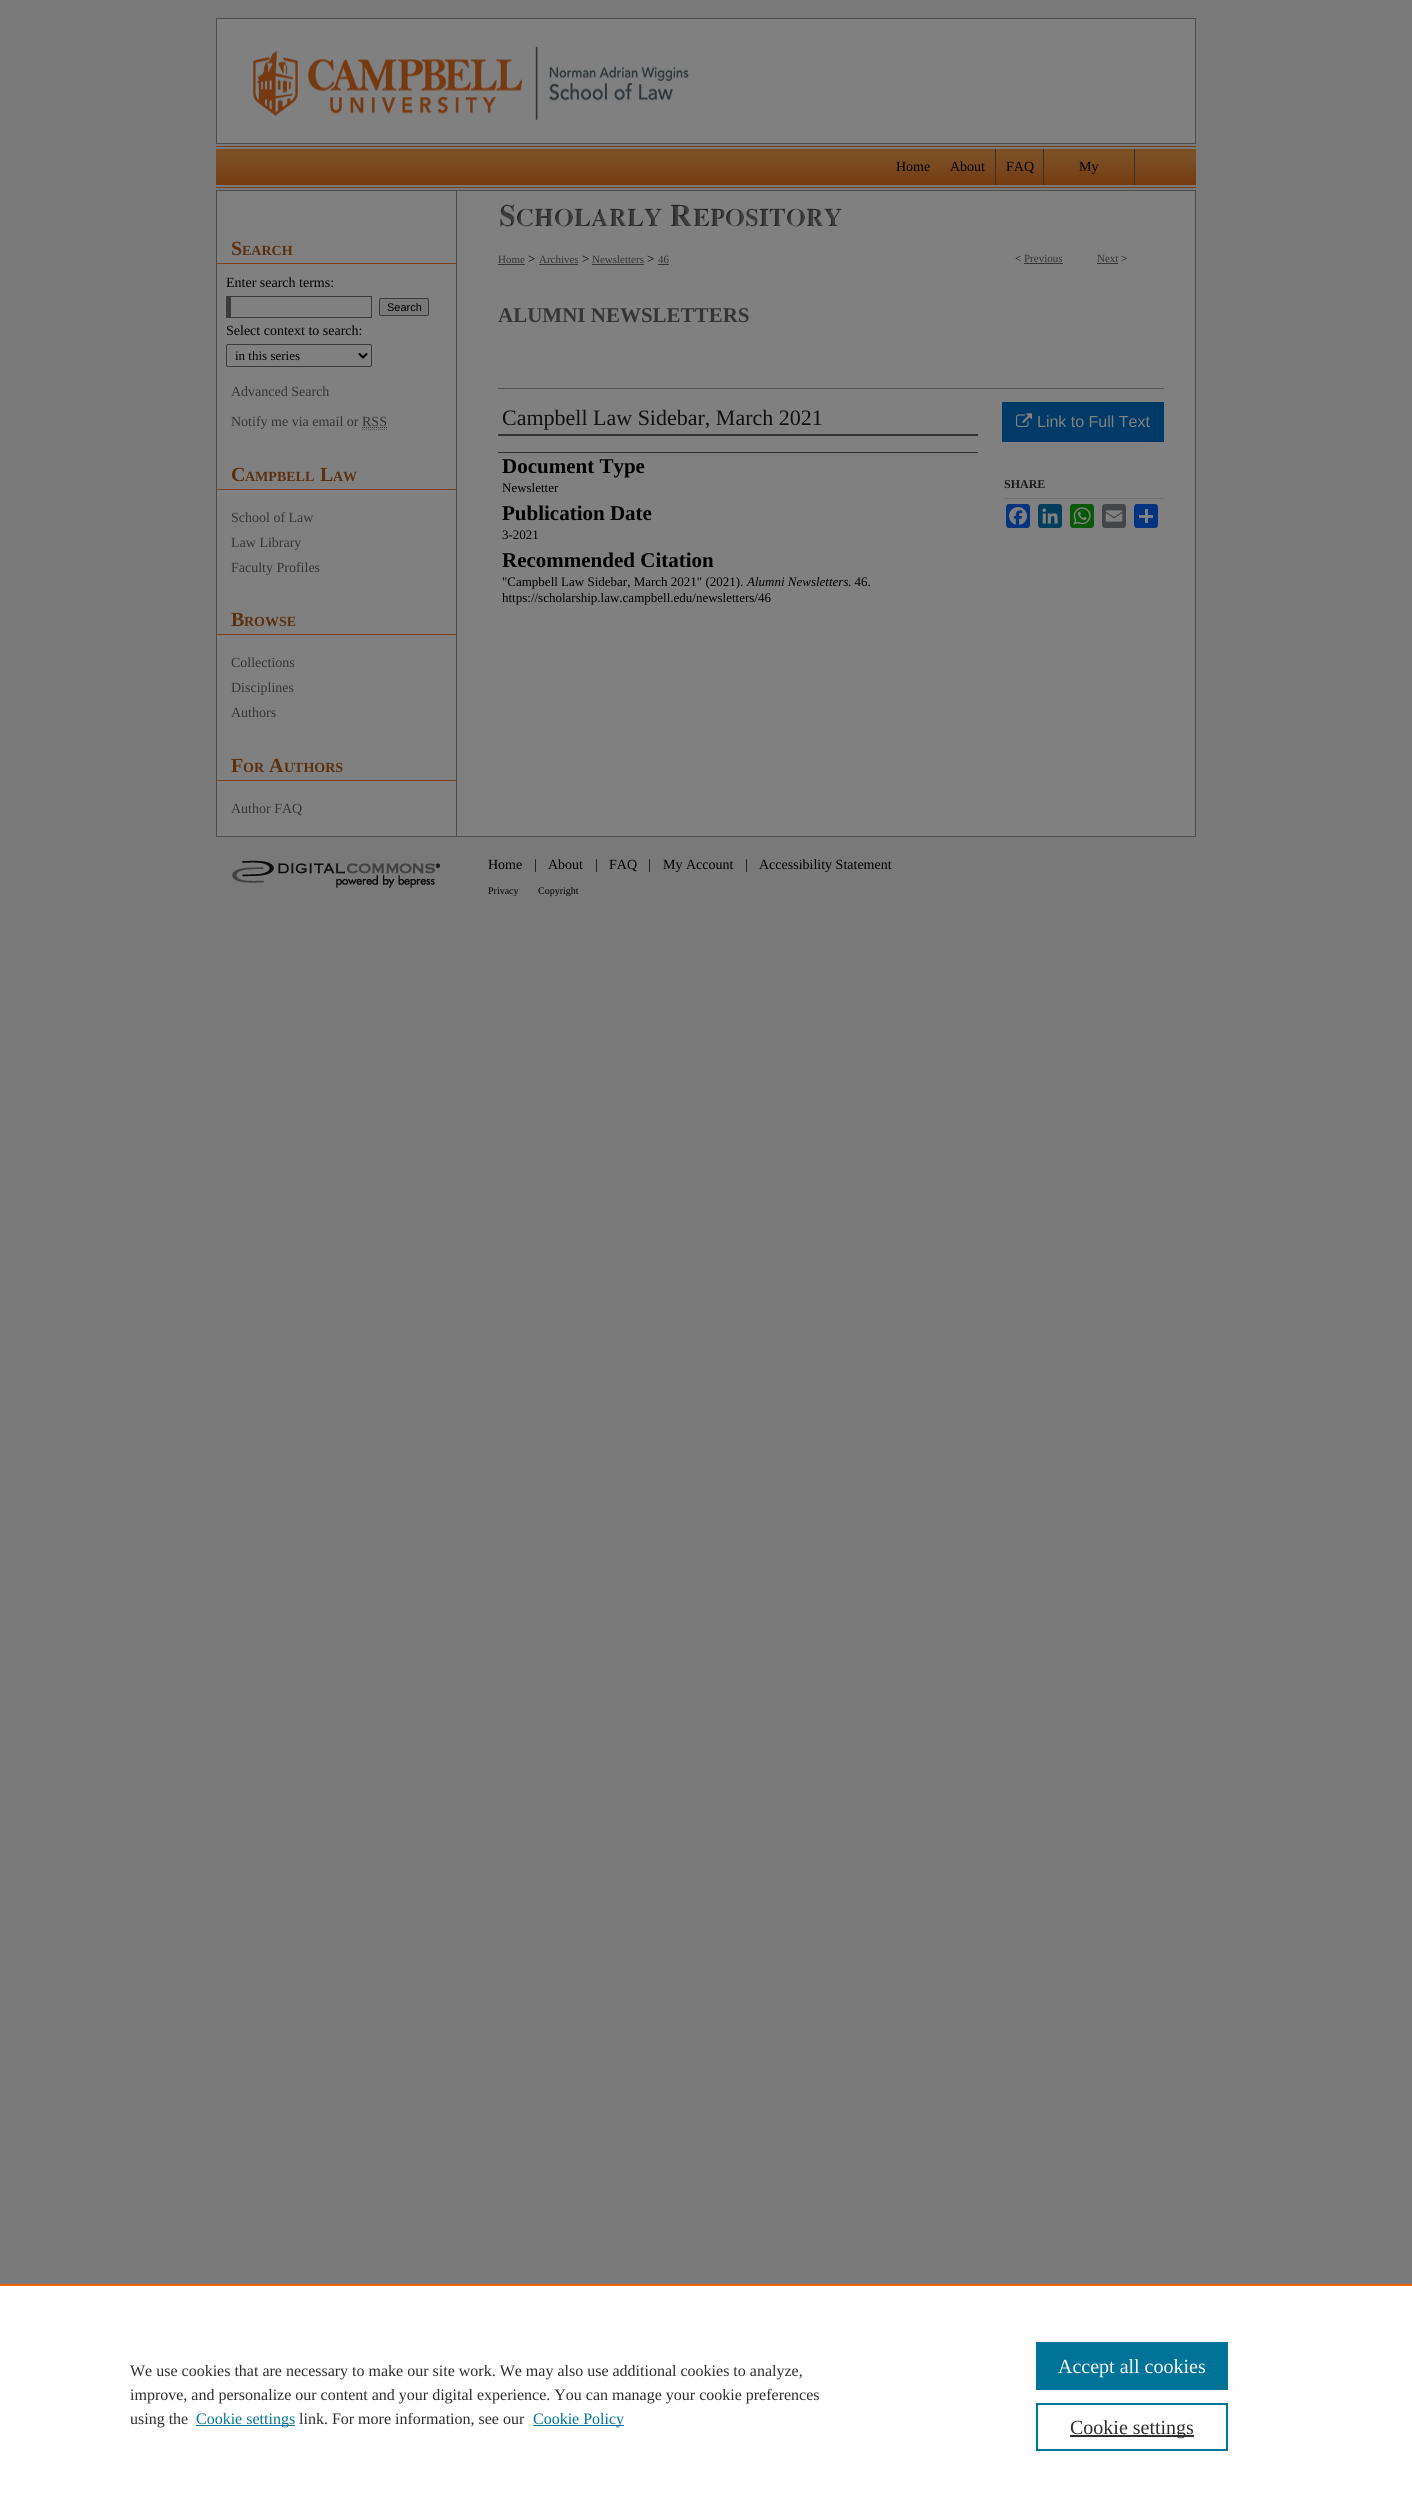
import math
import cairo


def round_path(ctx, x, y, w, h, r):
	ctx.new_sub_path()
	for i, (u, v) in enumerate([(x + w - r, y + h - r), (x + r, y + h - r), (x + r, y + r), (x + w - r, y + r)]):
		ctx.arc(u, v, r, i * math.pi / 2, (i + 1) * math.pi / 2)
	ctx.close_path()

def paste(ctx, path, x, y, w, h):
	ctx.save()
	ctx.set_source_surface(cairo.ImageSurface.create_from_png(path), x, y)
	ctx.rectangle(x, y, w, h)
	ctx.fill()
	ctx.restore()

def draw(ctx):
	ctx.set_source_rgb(0.475, 0.475, 0.475)
	ctx.paint()
	ctx.set_source_rgb(0.502, 0.502, 0.502)
	ctx.rectangle(216.5, 18.5, 979, 125)
	ctx.fill_preserve()
	ctx.set_source_rgb(0.302, 0.302, 0.302)
	ctx.set_line_width(1)
	ctx.stroke()
	paste(ctx, 'media/1.png', 253, 46, 436, 75)
	paste(ctx, 'media/2.png', 216, 144, 980, 47)
	ctx.select_font_face('Liberation Serif')
	ctx.set_font_size(14)
	ctx.set_source_rgb(0, 0, 0)
	ctx.move_to(896, 171)
	ctx.show_text('Home')
	ctx.set_source_rgb(0.2, 0.2, 0.2)
	ctx.rectangle(995, 149, 1, 36)
	ctx.fill()
	ctx.set_source_rgb(0, 0, 0)
	ctx.move_to(950, 171)
	ctx.show_text('About')
	ctx.set_source_rgb(0.2, 0.2, 0.2)
	ctx.rectangle(1043, 149, 1, 36)
	ctx.fill()
	ctx.set_source_rgb(0, 0, 0)
	ctx.move_to(1006, 171)
	ctx.show_text('FAQ')
	ctx.set_source_rgb(0.2, 0.2, 0.2)
	ctx.rectangle(1134, 149, 1, 36)
	ctx.fill()
	ctx.set_source_rgb(0, 0, 0)
	ctx.move_to(1079, 171)
	ctx.show_text('My')
	paste(ctx, 'media/3.png', 216, 191, 980, 49)
	paste(ctx, 'media/4.png', 500, 204, 342, 23)
	paste(ctx, 'media/5.png', 216, 240, 980, 596)
	ctx.set_source_rgb(0.482, 0.251, 0.075)
	ctx.rectangle(216, 263, 240, 1)
	ctx.fill()
	ctx.select_font_face('Liberation Serif', cairo.FONT_SLANT_NORMAL, cairo.FONT_WEIGHT_BOLD)
	ctx.set_font_size(20)
	ctx.set_source_rgb(0.357, 0.188, 0.059)
	ctx.move_to(231, 255)
	ctx.show_text('S')
	ctx.set_font_size(14)
	ctx.move_to(242, 255)
	ctx.show_text('EARCH')
	ctx.select_font_face('Liberation Serif')
	ctx.set_source_rgb(0, 0, 0)
	ctx.move_to(226, 287)
	ctx.show_text('Enter search terms:')
	ctx.set_source_rgb(0.231, 0.231, 0.231)
	ctx.rectangle(226, 296, 146, 1)
	ctx.rectangle(371, 296, 1, 22)
	ctx.rectangle(226, 317, 146, 1)
	ctx.rectangle(226, 296, 5, 22)
	ctx.fill()
	ctx.set_source_rgb(0.471, 0.471, 0.471)
	round_path(ctx, 379.5, 298.5, 49, 17, 1.5)
	ctx.fill_preserve()
	ctx.set_source_rgb(0.231, 0.231, 0.231)
	ctx.stroke()
	ctx.select_font_face('Liberation Sans')
	ctx.set_font_size(11)
	ctx.set_source_rgb(0, 0, 0)
	ctx.move_to(387, 311)
	ctx.show_text('Search')
	ctx.select_font_face('Liberation Serif')
	ctx.set_font_size(14)
	ctx.move_to(226, 335)
	ctx.show_text('Select context to search:')
	round_path(ctx, 226.5, 344.5, 145, 22, 1.5)
	ctx.set_source_rgb(0.231, 0.231, 0.231)
	ctx.stroke()
	ctx.new_path()
	ctx.move_to(359, 353.5)
	ctx.line_to(363, 357.5)
	ctx.line_to(367, 353.5)
	ctx.set_source_rgb(0, 0, 0)
	ctx.set_line_width(2)
	ctx.stroke()
	ctx.set_font_size(13)
	ctx.move_to(235, 360)
	ctx.show_text('in this series')
	ctx.set_font_size(14)
	ctx.set_source_rgb(0.208, 0.208, 0.208)
	ctx.move_to(231, 396)
	ctx.show_text('Advanced Search')
	ctx.move_to(231, 426)
	ctx.show_text('Notify me via email or RSS')
	ctx.new_path()
	ctx.move_to(362, 427.5)
	ctx.line_to(387, 427.5)
	ctx.set_line_width(1)
	ctx.set_dash([1, 1])
	ctx.stroke()
	ctx.new_path()
	ctx.move_to(362, 429.5)
	ctx.line_to(387, 429.5)
	ctx.set_source_rgb(0.302, 0.302, 0.302)
	ctx.stroke()
	ctx.set_source_rgb(0.482, 0.251, 0.075)
	ctx.rectangle(216, 489, 240, 1)
	ctx.fill()
	ctx.select_font_face('Liberation Serif', cairo.FONT_SLANT_NORMAL, cairo.FONT_WEIGHT_BOLD)
	ctx.set_font_size(20)
	ctx.set_source_rgb(0.357, 0.188, 0.059)
	ctx.move_to(231, 481)
	ctx.show_text('C')
	ctx.set_font_size(14)
	ctx.move_to(245, 481)
	ctx.show_text('AMPBELL')
	ctx.set_font_size(20)
	ctx.move_to(320, 481)
	ctx.show_text('L')
	ctx.set_font_size(14)
	ctx.move_to(333, 481)
	ctx.show_text('AW')
	ctx.select_font_face('Liberation Serif')
	ctx.set_source_rgb(0.208, 0.208, 0.208)
	for x, y, s in [
		(231, 522, 'School of Law'),
		(231, 547, 'Law Library'),
		(231, 572, 'Faculty Profiles'),
	]:
		ctx.move_to(x, y)
		ctx.show_text(s)
	ctx.set_source_rgb(0.482, 0.251, 0.075)
	ctx.rectangle(216, 634, 240, 1)
	ctx.fill()
	ctx.select_font_face('Liberation Serif', cairo.FONT_SLANT_NORMAL, cairo.FONT_WEIGHT_BOLD)
	ctx.set_font_size(20)
	ctx.set_source_rgb(0.357, 0.188, 0.059)
	ctx.move_to(231, 626)
	ctx.show_text('B')
	ctx.set_font_size(14)
	ctx.move_to(244, 626)
	ctx.show_text('ROWSE')
	ctx.select_font_face('Liberation Serif')
	ctx.set_source_rgb(0.208, 0.208, 0.208)
	for x, y, s in [
		(231, 667, 'Collections'),
		(231, 692, 'Disciplines'),
		(231, 717, 'Authors'),
	]:
		ctx.move_to(x, y)
		ctx.show_text(s)
	ctx.set_source_rgb(0.482, 0.251, 0.075)
	ctx.rectangle(216, 780, 240, 1)
	ctx.fill()
	ctx.select_font_face('Liberation Serif', cairo.FONT_SLANT_NORMAL, cairo.FONT_WEIGHT_BOLD)
	ctx.set_font_size(20)
	ctx.set_source_rgb(0.357, 0.188, 0.059)
	ctx.move_to(231, 772)
	ctx.show_text('F')
	ctx.set_font_size(14)
	ctx.move_to(243, 772)
	ctx.show_text('OR')
	ctx.set_font_size(20)
	ctx.move_to(269, 772)
	ctx.show_text('A')
	ctx.set_font_size(14)
	ctx.move_to(284, 772)
	ctx.show_text('UTHORS')
	ctx.select_font_face('Liberation Serif')
	ctx.set_source_rgb(0.208, 0.208, 0.208)
	ctx.move_to(231, 813)
	ctx.show_text('Author FAQ')
	ctx.set_font_size(11)
	ctx.move_to(498, 263)
	ctx.show_text('Home')
	ctx.rectangle(498, 264, 27, 1)
	ctx.fill()
	ctx.set_font_size(13)
	ctx.set_source_rgb(0, 0, 0)
	ctx.move_to(528, 263)
	ctx.show_text('>')
	ctx.set_font_size(11)
	ctx.set_source_rgb(0.208, 0.208, 0.208)
	ctx.move_to(539, 263)
	ctx.show_text('Archives')
	ctx.rectangle(539, 264, 39, 1)
	ctx.fill()
	ctx.set_font_size(13)
	ctx.set_source_rgb(0, 0, 0)
	ctx.move_to(582, 263)
	ctx.show_text('>')
	ctx.set_font_size(11)
	ctx.set_source_rgb(0.208, 0.208, 0.208)
	ctx.move_to(592, 263)
	ctx.show_text('Newsletters')
	ctx.rectangle(592, 264, 52, 1)
	ctx.fill()
	ctx.set_font_size(13)
	ctx.set_source_rgb(0, 0, 0)
	ctx.move_to(647, 263)
	ctx.show_text('>')
	ctx.set_font_size(11)
	ctx.set_source_rgb(0.208, 0.208, 0.208)
	ctx.move_to(658, 263)
	ctx.show_text('46')
	ctx.rectangle(658, 264, 11, 1)
	ctx.fill()
	ctx.set_source_rgb(0.067, 0.067, 0.067)
	ctx.move_to(1015, 262)
	ctx.show_text('<')
	ctx.set_source_rgb(0.208, 0.208, 0.208)
	ctx.move_to(1024, 262)
	ctx.show_text('Previous')
	ctx.rectangle(1024, 263, 39, 1)
	ctx.fill()
	ctx.move_to(1097, 262)
	ctx.show_text('Next')
	ctx.rectangle(1097, 263, 21, 1)
	ctx.fill()
	ctx.set_source_rgb(0.067, 0.067, 0.067)
	ctx.move_to(1121, 262)
	ctx.show_text('>')
	ctx.select_font_face('Liberation Serif', cairo.FONT_SLANT_NORMAL, cairo.FONT_WEIGHT_BOLD)
	ctx.set_font_size(21)
	ctx.set_source_rgb(0.208, 0.208, 0.208)
	ctx.move_to(498, 322)
	ctx.show_text('ALUMNI NEWSLETTERS')
	ctx.set_source_rgb(0.333, 0.333, 0.333)
	ctx.rectangle(498, 388, 666, 1)
	ctx.fill()
	ctx.select_font_face('Liberation Serif')
	ctx.set_font_size(22)
	ctx.set_source_rgb(0.067, 0.067, 0.067)
	ctx.move_to(502, 425)
	ctx.show_text('Campbell Law Sidebar, March 2021')
	ctx.set_source_rgb(0.2, 0.2, 0.2)
	ctx.rectangle(498, 434, 480, 2)
	ctx.fill()
	ctx.rectangle(498, 452, 480, 1)
	ctx.fill()
	ctx.select_font_face('Liberation Serif', cairo.FONT_SLANT_NORMAL, cairo.FONT_WEIGHT_BOLD)
	ctx.set_font_size(21)
	ctx.set_source_rgb(0, 0, 0)
	ctx.move_to(502, 473)
	ctx.show_text('Document Type')
	ctx.select_font_face('Liberation Serif')
	ctx.set_font_size(13)
	ctx.move_to(502, 492)
	ctx.show_text('Newsletter')
	ctx.select_font_face('Liberation Serif', cairo.FONT_SLANT_NORMAL, cairo.FONT_WEIGHT_BOLD)
	ctx.set_font_size(21)
	ctx.move_to(502, 520)
	ctx.show_text('Publication Date')
	ctx.select_font_face('Liberation Serif')
	ctx.set_font_size(13)
	ctx.move_to(502, 539)
	ctx.show_text('3-2021')
	ctx.select_font_face('Liberation Serif', cairo.FONT_SLANT_NORMAL, cairo.FONT_WEIGHT_BOLD)
	ctx.set_font_size(21)
	ctx.move_to(502, 567)
	ctx.show_text('Recommended Citation')
	ctx.select_font_face('Liberation Serif')
	ctx.set_font_size(13)
	ctx.move_to(502, 586)
	ctx.show_text('"Campbell Law Sidebar, March 2021" (2021).')
	ctx.select_font_face('Liberation Serif', cairo.FONT_SLANT_ITALIC)
	ctx.move_to(747, 586)
	ctx.show_text('Alumni Newsletters')
	ctx.select_font_face('Liberation Serif')
	ctx.move_to(848, 586)
	ctx.show_text('. 46.')
	ctx.move_to(502, 602)
	ctx.show_text('https://scholarship.law.campbell.edu/newsletters/46')
	ctx.set_source_rgb(0, 0.227, 0.4)
	ctx.rectangle(1002, 402, 162, 40)
	ctx.fill()
	paste(ctx, 'media/6.png', 1016, 413, 16, 14)
	ctx.select_font_face('Liberation Sans')
	ctx.set_font_size(16)
	ctx.set_source_rgb(0.502, 0.502, 0.502)
	ctx.move_to(1037, 427)
	ctx.show_text('Link to Full Text')
	ctx.set_source_rgb(0.435, 0.435, 0.435)
	ctx.rectangle(1004, 498, 160, 1)
	ctx.fill()
	ctx.select_font_face('Liberation Serif', cairo.FONT_SLANT_NORMAL, cairo.FONT_WEIGHT_BOLD)
	ctx.set_font_size(12)
	ctx.set_source_rgb(0.102, 0.102, 0.102)
	ctx.move_to(1004, 488)
	ctx.show_text('SHARE')
	ctx.set_source_rgb(0.016, 0.2, 0.502)
	round_path(ctx, 1006, 504, 24, 24, 3)
	ctx.fill()
	paste(ctx, 'media/7.png', 1009, 507, 18, 18)
	ctx.set_source_rgb(0, 0.243, 0.357)
	round_path(ctx, 1038, 504, 24, 24, 3)
	ctx.fill()
	paste(ctx, 'media/8.png', 1042, 508, 16, 16)
	ctx.set_source_rgb(0.035, 0.345, 0.02)
	round_path(ctx, 1070, 504, 24, 24, 3)
	ctx.fill()
	paste(ctx, 'media/9.png', 1073, 507, 18, 18)
	ctx.set_source_rgb(0.267, 0.271, 0.282)
	round_path(ctx, 1102, 504, 24, 24, 3)
	ctx.fill()
	paste(ctx, 'media/10.png', 1105, 510, 18, 12)
	ctx.set_source_rgb(0.004, 0.2, 0.502)
	round_path(ctx, 1134, 504, 24, 24, 3)
	ctx.fill()
	ctx.set_source_rgb(0.502, 0.502, 0.502)
	ctx.rectangle(1145, 509, 3, 14)
	ctx.rectangle(1139, 515, 14, 3)
	ctx.fill()
	ctx.set_source_rgb(0.302, 0.302, 0.302)
	ctx.rectangle(216, 836, 980, 1)
	ctx.fill()
	paste(ctx, 'media/11.png', 216, 837, 240, 75)
	ctx.select_font_face('Liberation Serif')
	ctx.set_font_size(14)
	ctx.set_source_rgb(0, 0, 0)
	for x, y, s in [
		(488, 869, 'Home'),
		(534, 869, '|'),
		(548, 869, 'About'),
		(595, 869, '|'),
		(609, 869, 'FAQ'),
		(648, 869, '|'),
		(663, 869, 'My Account'),
		(745, 869, '|'),
		(759, 869, 'Accessibility Statement'),
	]:
		ctx.move_to(x, y)
		ctx.show_text(s)
	ctx.set_font_size(10)
	ctx.move_to(488, 894)
	ctx.show_text('Privacy')
	ctx.move_to(538, 894)
	ctx.show_text('Copyright')
	ctx.set_source_rgb(1, 1, 1)
	ctx.rectangle(0, 2286, 1412, 218)
	ctx.fill()
	ctx.set_source_rgb(0.922, 0.396, 0)
	ctx.rectangle(0, 2284, 1412, 2)
	ctx.fill()
	ctx.set_font_size(16)
	ctx.set_source_rgb(0.18, 0.18, 0.18)
	for x, y, s in [
		(130, 2376, 'We use cookies that are necessary to make our site work. We may also use additional cookies to analyze,'),
		(130, 2400, 'improve, and personalize our content and your digital experience. You can manage your cookie preferences'),
		(130, 2424, 'using the'),
	]:
		ctx.move_to(x, y)
		ctx.show_text(s)
	ctx.set_source_rgb(0, 0.451, 0.596)
	ctx.rectangle(196, 2425, 99, 1)
	ctx.fill()
	ctx.move_to(196, 2424)
	ctx.show_text('Cookie settings')
	ctx.set_source_rgb(0.18, 0.18, 0.18)
	ctx.move_to(299, 2424)
	ctx.show_text('link. For more information, see our')
	ctx.set_source_rgb(0, 0.451, 0.596)
	ctx.rectangle(533, 2425, 91, 1)
	ctx.fill()
	ctx.move_to(533, 2424)
	ctx.show_text('Cookie Policy')
	ctx.rectangle(1036, 2342, 192, 48)
	ctx.fill()
	ctx.set_font_size(20)
	ctx.set_source_rgb(1, 1, 1)
	ctx.move_to(1058, 2373)
	ctx.show_text('Accept all cookies')
	ctx.rectangle(1037, 2404, 190, 46)
	ctx.set_source_rgb(0, 0.451, 0.596)
	ctx.set_line_width(2)
	ctx.set_dash([])
	ctx.stroke()
	ctx.set_source_rgb(0.18, 0.18, 0.18)
	ctx.rectangle(1070, 2435, 124, 2)
	ctx.fill()
	ctx.move_to(1070, 2434)
	ctx.show_text('Cookie settings')


surface = cairo.ImageSurface(cairo.FORMAT_RGB24, 1412, 2504)
ctx = cairo.Context(surface)
options = cairo.FontOptions()
options.set_hint_metrics(cairo.HINT_METRICS_OFF)
options.set_hint_style(cairo.HINT_STYLE_NONE)
ctx.set_font_options(options)
ctx.set_miter_limit(4)
draw(ctx)
surface.write_to_png('image.png')
